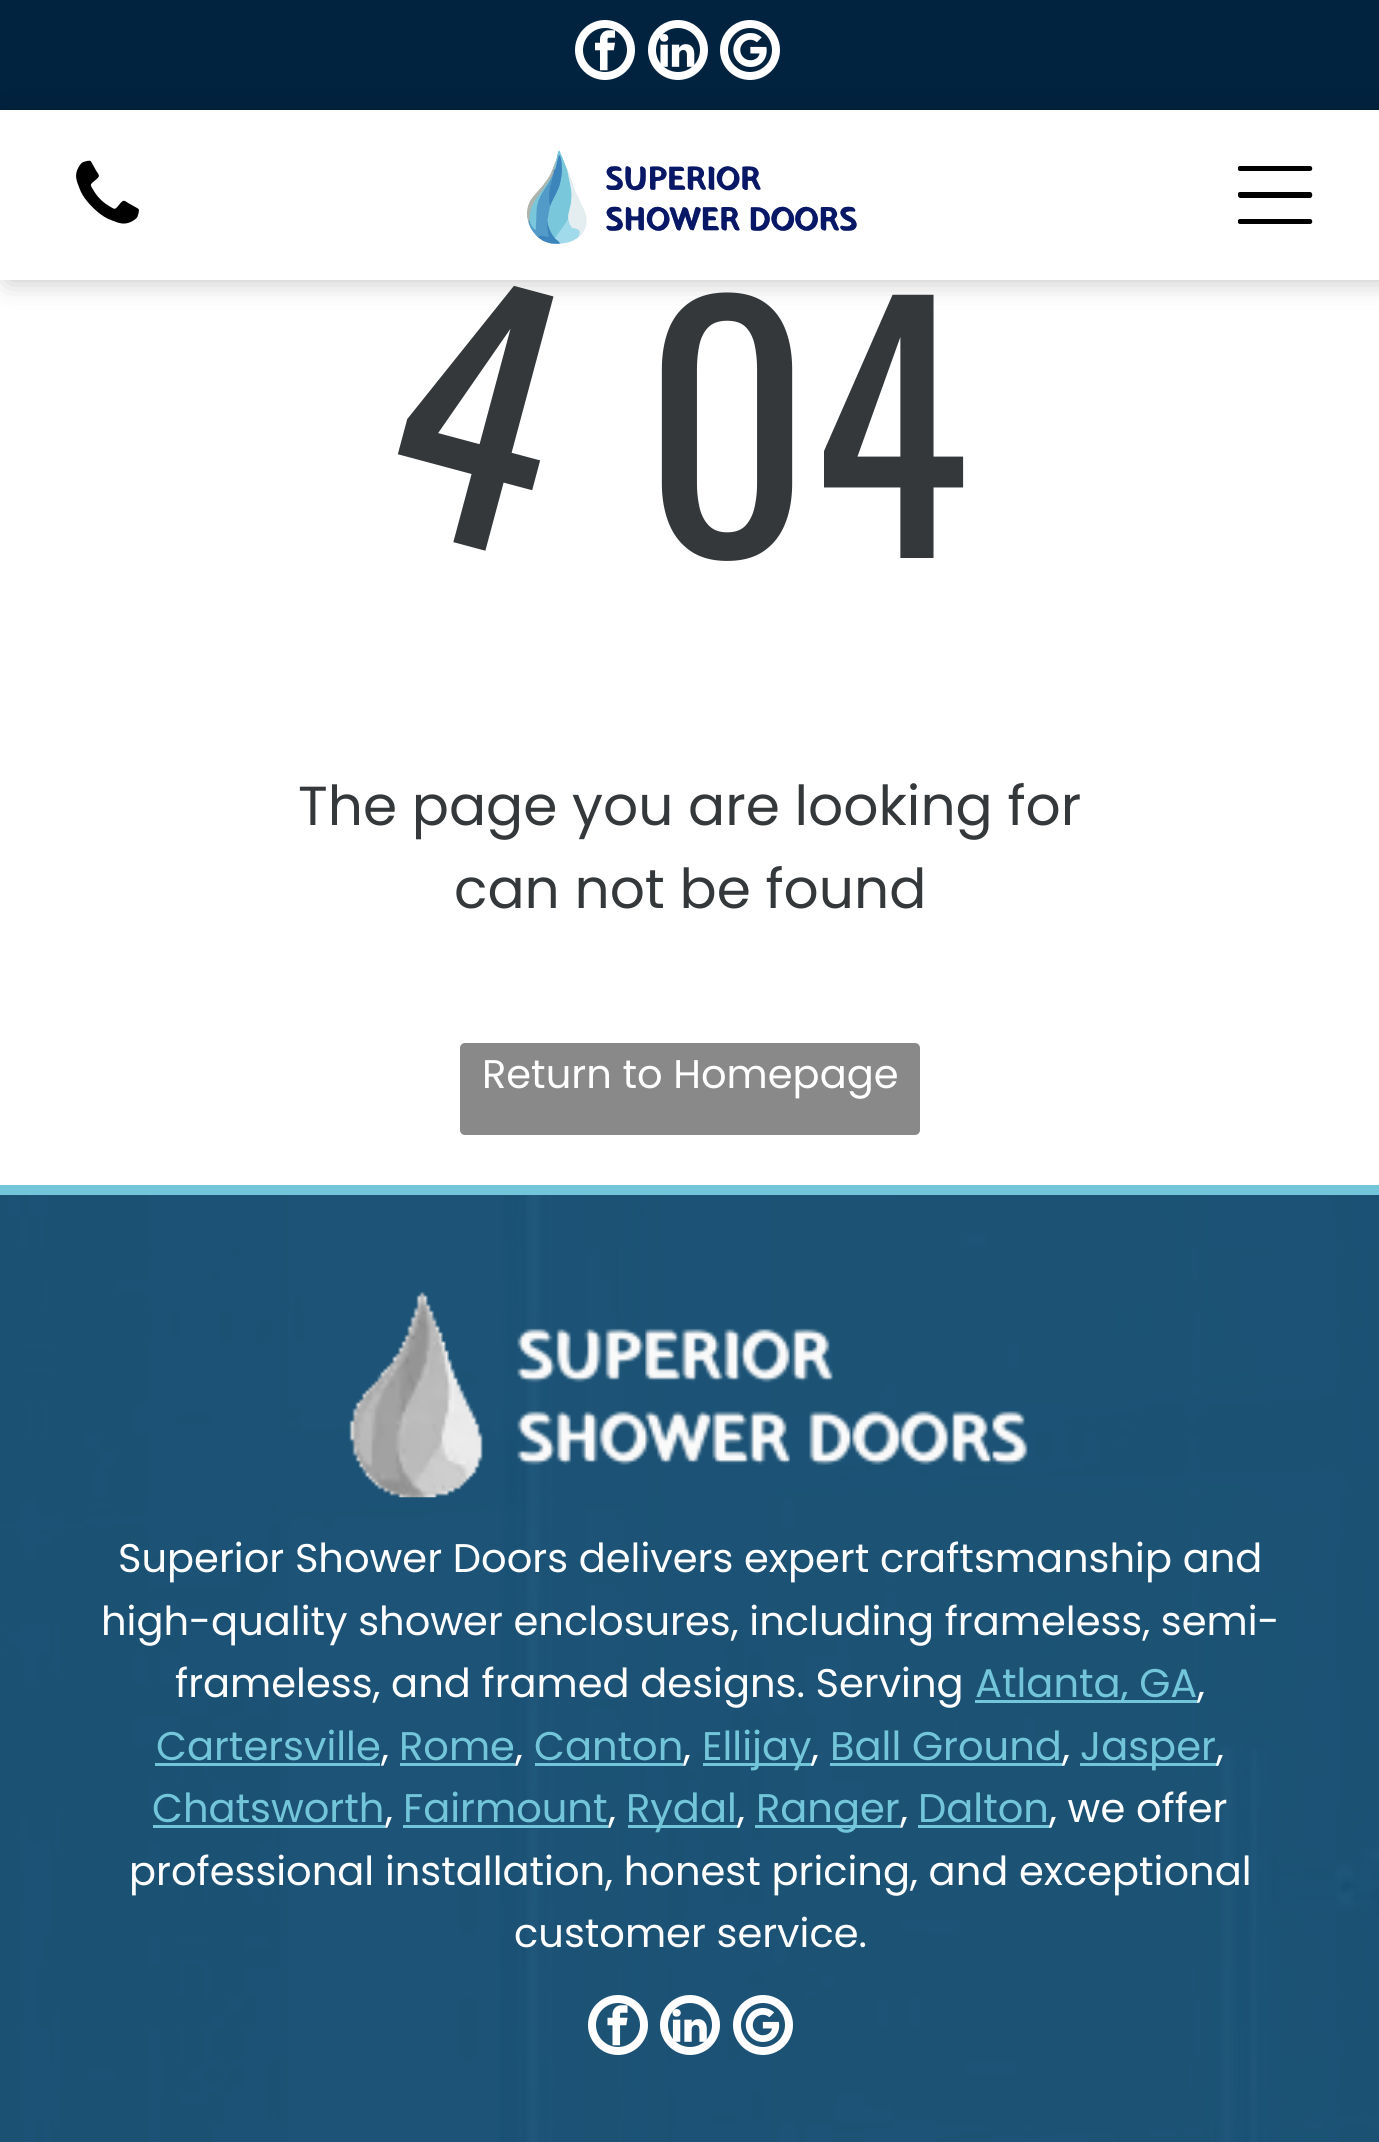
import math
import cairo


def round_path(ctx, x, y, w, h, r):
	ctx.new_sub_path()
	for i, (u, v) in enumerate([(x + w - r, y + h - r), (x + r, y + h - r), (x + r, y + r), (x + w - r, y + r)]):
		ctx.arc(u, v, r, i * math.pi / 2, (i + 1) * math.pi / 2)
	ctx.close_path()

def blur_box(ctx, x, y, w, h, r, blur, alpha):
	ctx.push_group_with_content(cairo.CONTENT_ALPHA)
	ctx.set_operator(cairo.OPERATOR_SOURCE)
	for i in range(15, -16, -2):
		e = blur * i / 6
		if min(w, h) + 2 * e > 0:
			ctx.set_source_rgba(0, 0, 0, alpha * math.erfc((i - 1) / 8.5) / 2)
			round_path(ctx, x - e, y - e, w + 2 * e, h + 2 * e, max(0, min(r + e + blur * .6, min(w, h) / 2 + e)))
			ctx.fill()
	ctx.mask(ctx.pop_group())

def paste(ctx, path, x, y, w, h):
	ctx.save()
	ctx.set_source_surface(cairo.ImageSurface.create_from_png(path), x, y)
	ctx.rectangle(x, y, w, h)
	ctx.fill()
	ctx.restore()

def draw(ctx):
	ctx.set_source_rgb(1, 1, 1)
	ctx.paint()
	ctx.set_source_rgb(0.004, 0.137, 0.251)
	ctx.rectangle(0, 0, 1379, 110)
	ctx.fill()
	ctx.arc(605, 50, 26, 0, 2 * math.pi)
	ctx.set_source_rgb(1, 1, 1)
	ctx.set_line_width(8)
	ctx.stroke()
	paste(ctx, 'media/1.png', 595, 30, 21, 41)
	ctx.arc(678, 50, 26, 0, 2 * math.pi)
	ctx.stroke()
	paste(ctx, 'media/2.png', 660, 34, 35, 33)
	ctx.arc(750, 50, 26, 0, 2 * math.pi)
	ctx.stroke()
	paste(ctx, 'media/3.png', 733, 33, 34, 34)
	ctx.save()
	ctx.set_fill_rule(cairo.FILL_RULE_EVEN_ODD)
	ctx.new_path()
	ctx.move_to(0, 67)
	ctx.line_to(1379, 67)
	ctx.line_to(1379, 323)
	ctx.line_to(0, 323)
	ctx.close_path()
	ctx.move_to(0, 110)
	ctx.line_to(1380, 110)
	ctx.line_to(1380, 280)
	ctx.line_to(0, 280)
	ctx.close_path()
	ctx.clip()
	ctx.set_source_rgb(0, 0, 0)
	blur_box(ctx, 8, 110, 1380, 170, 0, 14, 0.25)
	ctx.restore()
	paste(ctx, 'media/4.png', 76, 160, 63, 64)
	paste(ctx, 'media/5.png', 527, 150, 330, 94)
	ctx.save()
	ctx.rectangle(1238, 158, 75, 75)
	ctx.clip()
	ctx.set_source_rgb(0, 0, 0)
	ctx.new_path()
	ctx.move_to(1240, 166)
	ctx.curve_to(1237, 166, 1237, 171, 1240, 171)
	ctx.line_to(1310, 171)
	ctx.curve_to(1313, 171, 1313, 166, 1310, 166)
	ctx.close_path()
	ctx.move_to(1240, 192)
	ctx.curve_to(1237, 192, 1237, 197, 1240, 198)
	ctx.line_to(1310, 198)
	ctx.curve_to(1313, 198, 1313, 192, 1310, 192)
	ctx.close_path()
	ctx.move_to(1240, 219)
	ctx.curve_to(1237, 219, 1237, 224, 1240, 224)
	ctx.line_to(1310, 224)
	ctx.curve_to(1313, 224, 1313, 219, 1310, 219)
	ctx.close_path()
	ctx.fill()
	ctx.restore()
	ctx.select_font_face('Oswald')
	ctx.set_font_size(325)
	ctx.set_source_rgb(0.204, 0.22, 0.227)
	ctx.save()
	ctx.translate(367, 519)
	ctx.rotate(15 * math.pi / 180)
	ctx.move_to(0, 0)
	ctx.show_text('4')
	ctx.restore()
	ctx.move_to(643, 558)
	ctx.show_text('04')
	ctx.select_font_face('Poppins')
	ctx.set_font_size(55)
	ctx.move_to(298, 825)
	ctx.show_text('The page you are looking for')
	ctx.move_to(454, 908)
	ctx.show_text('can not be found')
	ctx.set_source_rgb(0.537, 0.537, 0.537)
	round_path(ctx, 460, 1043, 460, 92, 5)
	ctx.fill()
	ctx.set_font_size(40)
	ctx.set_source_rgb(1, 1, 1)
	ctx.move_to(482, 1088)
	ctx.show_text('Return to Homepage')
	paste(ctx, 'media/6.png', 0, 1195, 1379, 947)
	ctx.set_source_rgb(0.451, 0.776, 0.851)
	ctx.rectangle(0, 1185, 1379, 10)
	ctx.fill()
	paste(ctx, 'media/7.png', 349, 1292, 679, 206)
	ctx.set_source_rgb(1, 1, 1)
	for x, y, s in [
		(118, 1572, 'Superior Shower Doors delivers expert craftsmanship and'),
		(101, 1635, 'high-quality shower enclosures, including frameless, semi-'),
		(175, 1697, 'frameless, and framed designs. Serving'),
	]:
		ctx.move_to(x, y)
		ctx.show_text(s)
	ctx.set_source_rgb(0.451, 0.776, 0.851)
	ctx.rectangle(975, 1700, 223, 3)
	ctx.fill()
	ctx.move_to(975, 1697)
	ctx.show_text('Atlanta, GA')
	ctx.set_source_rgb(1, 1, 1)
	ctx.move_to(1197, 1697)
	ctx.show_text(',')
	ctx.set_source_rgb(0.451, 0.776, 0.851)
	ctx.move_to(156, 1760)
	ctx.show_text('Cartersville')
	ctx.rectangle(155, 1763, 225, 3)
	ctx.fill()
	ctx.set_source_rgb(1, 1, 1)
	ctx.move_to(381, 1760)
	ctx.show_text(',')
	ctx.set_source_rgb(0.451, 0.776, 0.851)
	ctx.move_to(399, 1760)
	ctx.show_text('Rome')
	ctx.rectangle(400, 1763, 115, 3)
	ctx.fill()
	ctx.set_source_rgb(1, 1, 1)
	ctx.move_to(515, 1760)
	ctx.show_text(',')
	ctx.set_source_rgb(0.451, 0.776, 0.851)
	ctx.move_to(534, 1760)
	ctx.show_text('Canton')
	ctx.rectangle(535, 1763, 148, 3)
	ctx.fill()
	ctx.set_source_rgb(1, 1, 1)
	ctx.move_to(683, 1760)
	ctx.show_text(',')
	ctx.set_source_rgb(0.451, 0.776, 0.851)
	ctx.rectangle(703, 1763, 110, 3)
	ctx.fill()
	ctx.move_to(702, 1760)
	ctx.show_text('Ellijay')
	ctx.set_source_rgb(1, 1, 1)
	ctx.move_to(811, 1760)
	ctx.show_text(',')
	ctx.set_source_rgb(0.451, 0.776, 0.851)
	ctx.move_to(830, 1760)
	ctx.show_text('Ball Ground')
	ctx.rectangle(830, 1763, 233, 3)
	ctx.fill()
	ctx.set_source_rgb(1, 1, 1)
	ctx.move_to(1062, 1760)
	ctx.show_text(',')
	ctx.set_source_rgb(0.451, 0.776, 0.851)
	ctx.rectangle(1080, 1763, 138, 3)
	ctx.fill()
	ctx.move_to(1080, 1760)
	ctx.show_text('Jasper')
	ctx.set_source_rgb(1, 1, 1)
	ctx.move_to(1216, 1760)
	ctx.show_text(',')
	ctx.set_source_rgb(0.451, 0.776, 0.851)
	ctx.move_to(152, 1822)
	ctx.show_text('Chatsworth')
	ctx.rectangle(153, 1825, 232, 3)
	ctx.fill()
	ctx.set_source_rgb(1, 1, 1)
	ctx.move_to(385, 1822)
	ctx.show_text(',')
	ctx.set_source_rgb(0.451, 0.776, 0.851)
	ctx.move_to(403, 1822)
	ctx.show_text('Fairmount')
	ctx.rectangle(403, 1825, 205, 3)
	ctx.fill()
	ctx.set_source_rgb(1, 1, 1)
	ctx.move_to(608, 1822)
	ctx.show_text(',')
	ctx.set_source_rgb(0.451, 0.776, 0.851)
	ctx.rectangle(628, 1825, 110, 3)
	ctx.fill()
	ctx.move_to(626, 1822)
	ctx.show_text('Rydal')
	ctx.set_source_rgb(1, 1, 1)
	ctx.move_to(737, 1822)
	ctx.show_text(',')
	ctx.set_source_rgb(0.451, 0.776, 0.851)
	ctx.rectangle(755, 1825, 145, 3)
	ctx.fill()
	ctx.move_to(756, 1822)
	ctx.show_text('Ranger')
	ctx.set_source_rgb(1, 1, 1)
	ctx.move_to(900, 1822)
	ctx.show_text(',')
	ctx.set_source_rgb(0.451, 0.776, 0.851)
	ctx.move_to(918, 1822)
	ctx.show_text('Dalton')
	ctx.rectangle(918, 1825, 132, 3)
	ctx.fill()
	ctx.set_source_rgb(1, 1, 1)
	for x, y, s in [
		(1049, 1822, ', we offer'),
		(129, 1885, 'professional installation, honest pricing, and exceptional'),
		(514, 1947, 'customer service.'),
	]:
		ctx.move_to(x, y)
		ctx.show_text(s)
	ctx.new_path()
	ctx.arc(618, 2025, 26, 0, 2 * math.pi)
	ctx.stroke()
	paste(ctx, 'media/8.png', 607, 2005, 21, 41)
	ctx.arc(690, 2025, 26, 0, 2 * math.pi)
	ctx.stroke()
	paste(ctx, 'media/9.png', 672, 2009, 35, 33)
	ctx.arc(763, 2025, 26, 0, 2 * math.pi)
	ctx.stroke()
	paste(ctx, 'media/10.png', 745, 2008, 35, 34)


surface = cairo.ImageSurface(cairo.FORMAT_RGB24, 1379, 2142)
ctx = cairo.Context(surface)
options = cairo.FontOptions()
options.set_hint_metrics(cairo.HINT_METRICS_OFF)
options.set_hint_style(cairo.HINT_STYLE_NONE)
ctx.set_font_options(options)
ctx.set_miter_limit(4)
draw(ctx)
surface.write_to_png('image.png')
